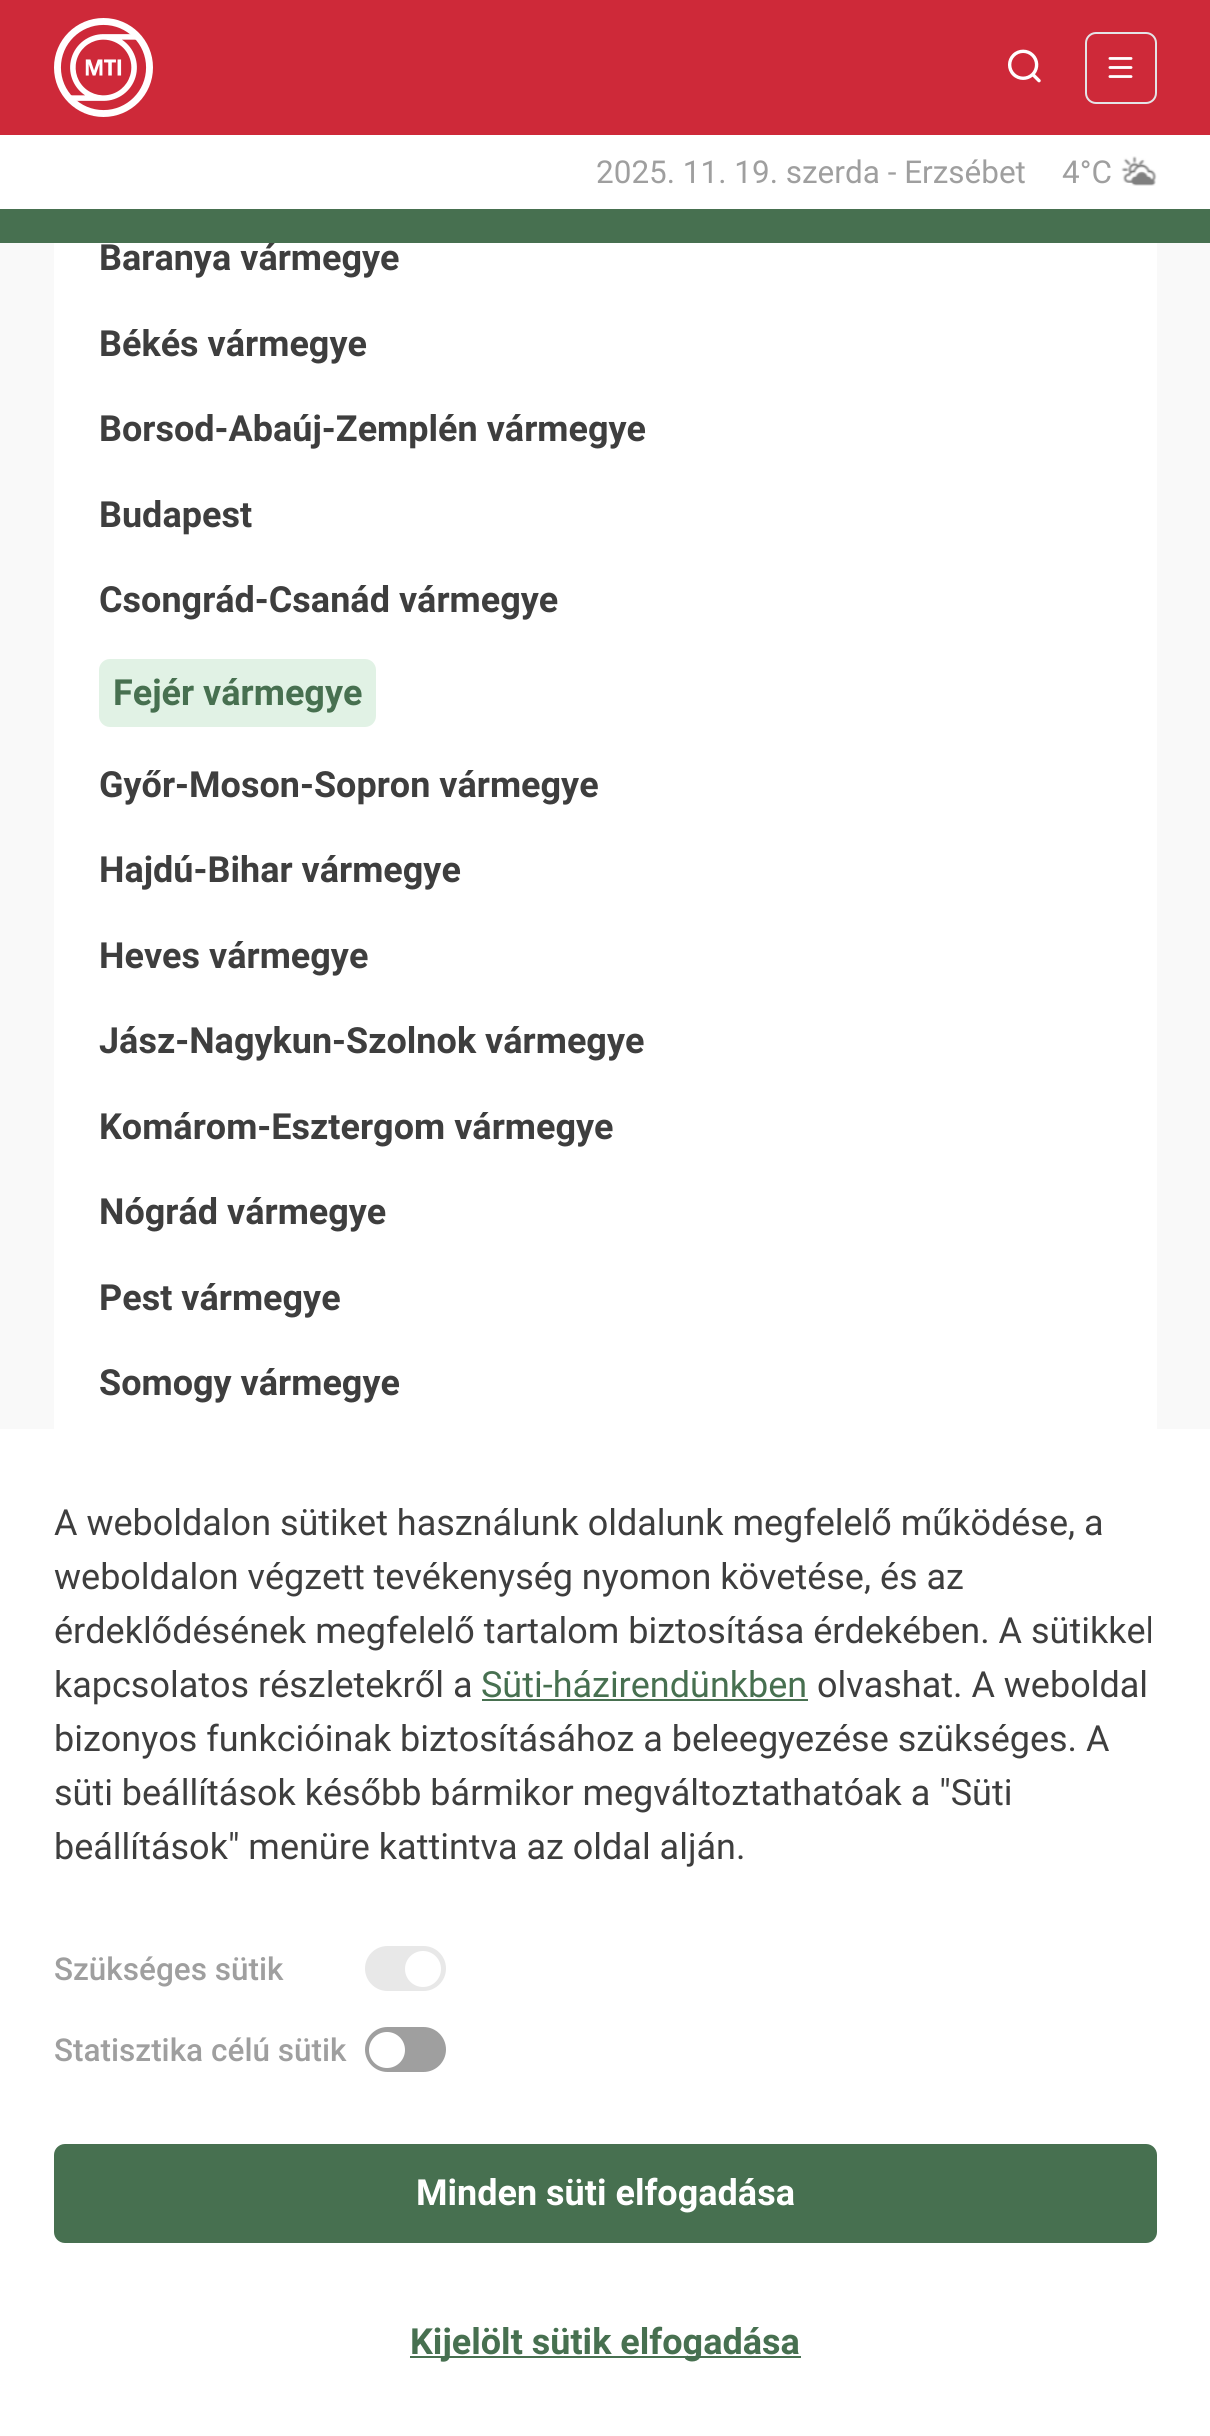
import math
import cairo


def round_path(ctx, x, y, w, h, r):
	ctx.new_sub_path()
	for i, (u, v) in enumerate([(x + w - r, y + h - r), (x + r, y + h - r), (x + r, y + r), (x + w - r, y + r)]):
		ctx.arc(u, v, r, i * math.pi / 2, (i + 1) * math.pi / 2)
	ctx.close_path()

def paste(ctx, path, x, y, w, h):
	ctx.save()
	ctx.set_source_surface(cairo.ImageSurface.create_from_png(path), x, y)
	ctx.rectangle(x, y, w, h)
	ctx.fill()
	ctx.restore()

def draw(ctx):
	ctx.set_source_rgb(0.973, 0.973, 0.973)
	ctx.paint()
	ctx.set_source_rgb(0.808, 0.161, 0.224)
	ctx.rectangle(0, 0, 1210, 135)
	ctx.fill()
	paste(ctx, 'media/1.png', 54, 18, 99, 99)
	paste(ctx, 'media/2.png', 1008, 49, 33, 34)
	round_path(ctx, 1086, 33, 70, 70, 10)
	ctx.set_source_rgb(0.894, 0.894, 0.906)
	ctx.stroke()
	paste(ctx, 'media/3.png', 1108, 57, 25, 21)
	ctx.set_source_rgb(1, 1, 1)
	ctx.rectangle(0, 135, 1210, 74)
	ctx.fill()
	ctx.select_font_face('Roboto')
	ctx.set_font_size(31.5)
	ctx.set_source_rgb(0.624, 0.624, 0.624)
	ctx.move_to(596, 183)
	ctx.show_text('2025. 11. 19. szerda - Erzsébet')
	ctx.move_to(1062, 183)
	ctx.show_text('4°C')
	paste(ctx, 'media/4.png', 1121, 156, 36, 30)
	ctx.set_source_rgb(0.278, 0.439, 0.314)
	ctx.rectangle(0, 209, 1210, 34)
	ctx.fill()
	ctx.set_source_rgb(1, 1, 1)
	ctx.rectangle(54, 243, 1103, 1186)
	ctx.fill()
	ctx.select_font_face('Roboto', cairo.FONT_SLANT_NORMAL, cairo.FONT_WEIGHT_BOLD)
	ctx.set_font_size(36)
	ctx.set_source_rgb(0.243, 0.243, 0.243)
	for x, y, s in [
		(99, 270, 'Baranya vármegye'),
		(99, 356, 'Békés vármegye'),
		(99, 441, 'Borsod-Abaúj-Zemplén vármegye'),
		(99, 527, 'Budapest'),
		(99, 612, 'Csongrád-Csanád vármegye'),
	]:
		ctx.move_to(x, y)
		ctx.show_text(s)
	ctx.set_source_rgb(0.882, 0.949, 0.898)
	round_path(ctx, 99, 659, 277, 68, 11)
	ctx.fill()
	ctx.set_source_rgb(0.278, 0.439, 0.314)
	ctx.move_to(113, 705)
	ctx.show_text('Fejér vármegye')
	ctx.set_source_rgb(0.243, 0.243, 0.243)
	for x, y, s in [
		(99, 797, 'Győr-Moson-Sopron vármegye'),
		(99, 882, 'Hajdú-Bihar vármegye'),
		(99, 968, 'Heves vármegye'),
		(99, 1053, 'Jász-Nagykun-Szolnok vármegye'),
		(99, 1139, 'Komárom-Esztergom vármegye'),
		(99, 1224, 'Nógrád vármegye'),
		(99, 1310, 'Pest vármegye'),
		(99, 1395, 'Somogy vármegye'),
	]:
		ctx.move_to(x, y)
		ctx.show_text(s)
	ctx.set_source_rgb(1, 1, 1)
	ctx.rectangle(0, 1429, 1210, 1007)
	ctx.fill()
	ctx.select_font_face('Roboto')
	ctx.set_source_rgb(0.243, 0.243, 0.243)
	for x, y, s in [
		(54, 1535, 'A weboldalon sütiket használunk oldalunk megfelelő működése, a'),
		(54, 1589, 'weboldalon végzett tevékenység nyomon követése, és az'),
		(54, 1643, 'érdeklődésének megfelelő tartalom biztosítása érdekében. A sütikkel'),
		(54, 1697, 'kapcsolatos részletekről a'),
	]:
		ctx.move_to(x, y)
		ctx.show_text(s)
	ctx.set_source_rgb(0.278, 0.439, 0.314)
	ctx.move_to(481, 1697)
	ctx.show_text('Süti-házirendünkben')
	ctx.rectangle(482, 1699, 326, 2)
	ctx.fill()
	ctx.set_source_rgb(0.243, 0.243, 0.243)
	for x, y, s in [
		(817, 1697, 'olvashat. A weboldal'),
		(54, 1751, 'bizonyos funkcióinak biztosításához a beleegyezése szükséges. A'),
		(54, 1805, 'süti beállítások később bármikor megváltoztathatóak a "Süti'),
		(54, 1859, 'beállítások" menüre kattintva az oldal alján.'),
	]:
		ctx.move_to(x, y)
		ctx.show_text(s)
	ctx.select_font_face('Roboto Medium')
	ctx.set_font_size(31.5)
	ctx.set_source_rgb(0.624, 0.624, 0.624)
	ctx.move_to(54, 1980)
	ctx.show_text('Szükséges sütik')
	ctx.set_source_rgb(0.91, 0.91, 0.91)
	round_path(ctx, 365, 1946, 81, 45, 22.5)
	ctx.fill()
	ctx.set_source_rgb(1, 1, 1)
	ctx.arc(423, 1969, 18, 0, 2 * math.pi)
	ctx.fill()
	ctx.set_source_rgb(0.624, 0.624, 0.624)
	ctx.move_to(54, 2061)
	ctx.show_text('Statisztika célú sütik')
	round_path(ctx, 365, 2027, 81, 45, 22.5)
	ctx.fill()
	ctx.set_source_rgb(1, 1, 1)
	ctx.arc(387, 2050, 18, 0, 2 * math.pi)
	ctx.fill()
	ctx.set_source_rgb(0.278, 0.439, 0.314)
	round_path(ctx, 54, 2144, 1103, 99, 11)
	ctx.fill()
	ctx.select_font_face('Roboto', cairo.FONT_SLANT_NORMAL, cairo.FONT_WEIGHT_BOLD)
	ctx.set_font_size(36)
	ctx.set_source_rgb(1, 1, 1)
	ctx.move_to(416, 2205)
	ctx.show_text('Minden süti elfogadása')
	ctx.set_source_rgb(0.278, 0.439, 0.314)
	ctx.rectangle(410, 2356, 391, 2)
	ctx.fill()
	ctx.move_to(410, 2354)
	ctx.show_text('Kijelölt sütik elfogadása')


surface = cairo.ImageSurface(cairo.FORMAT_RGB24, 1210, 2436)
ctx = cairo.Context(surface)
options = cairo.FontOptions()
options.set_hint_metrics(cairo.HINT_METRICS_OFF)
options.set_hint_style(cairo.HINT_STYLE_NONE)
ctx.set_font_options(options)
ctx.set_miter_limit(4)
draw(ctx)
surface.write_to_png('image.png')
